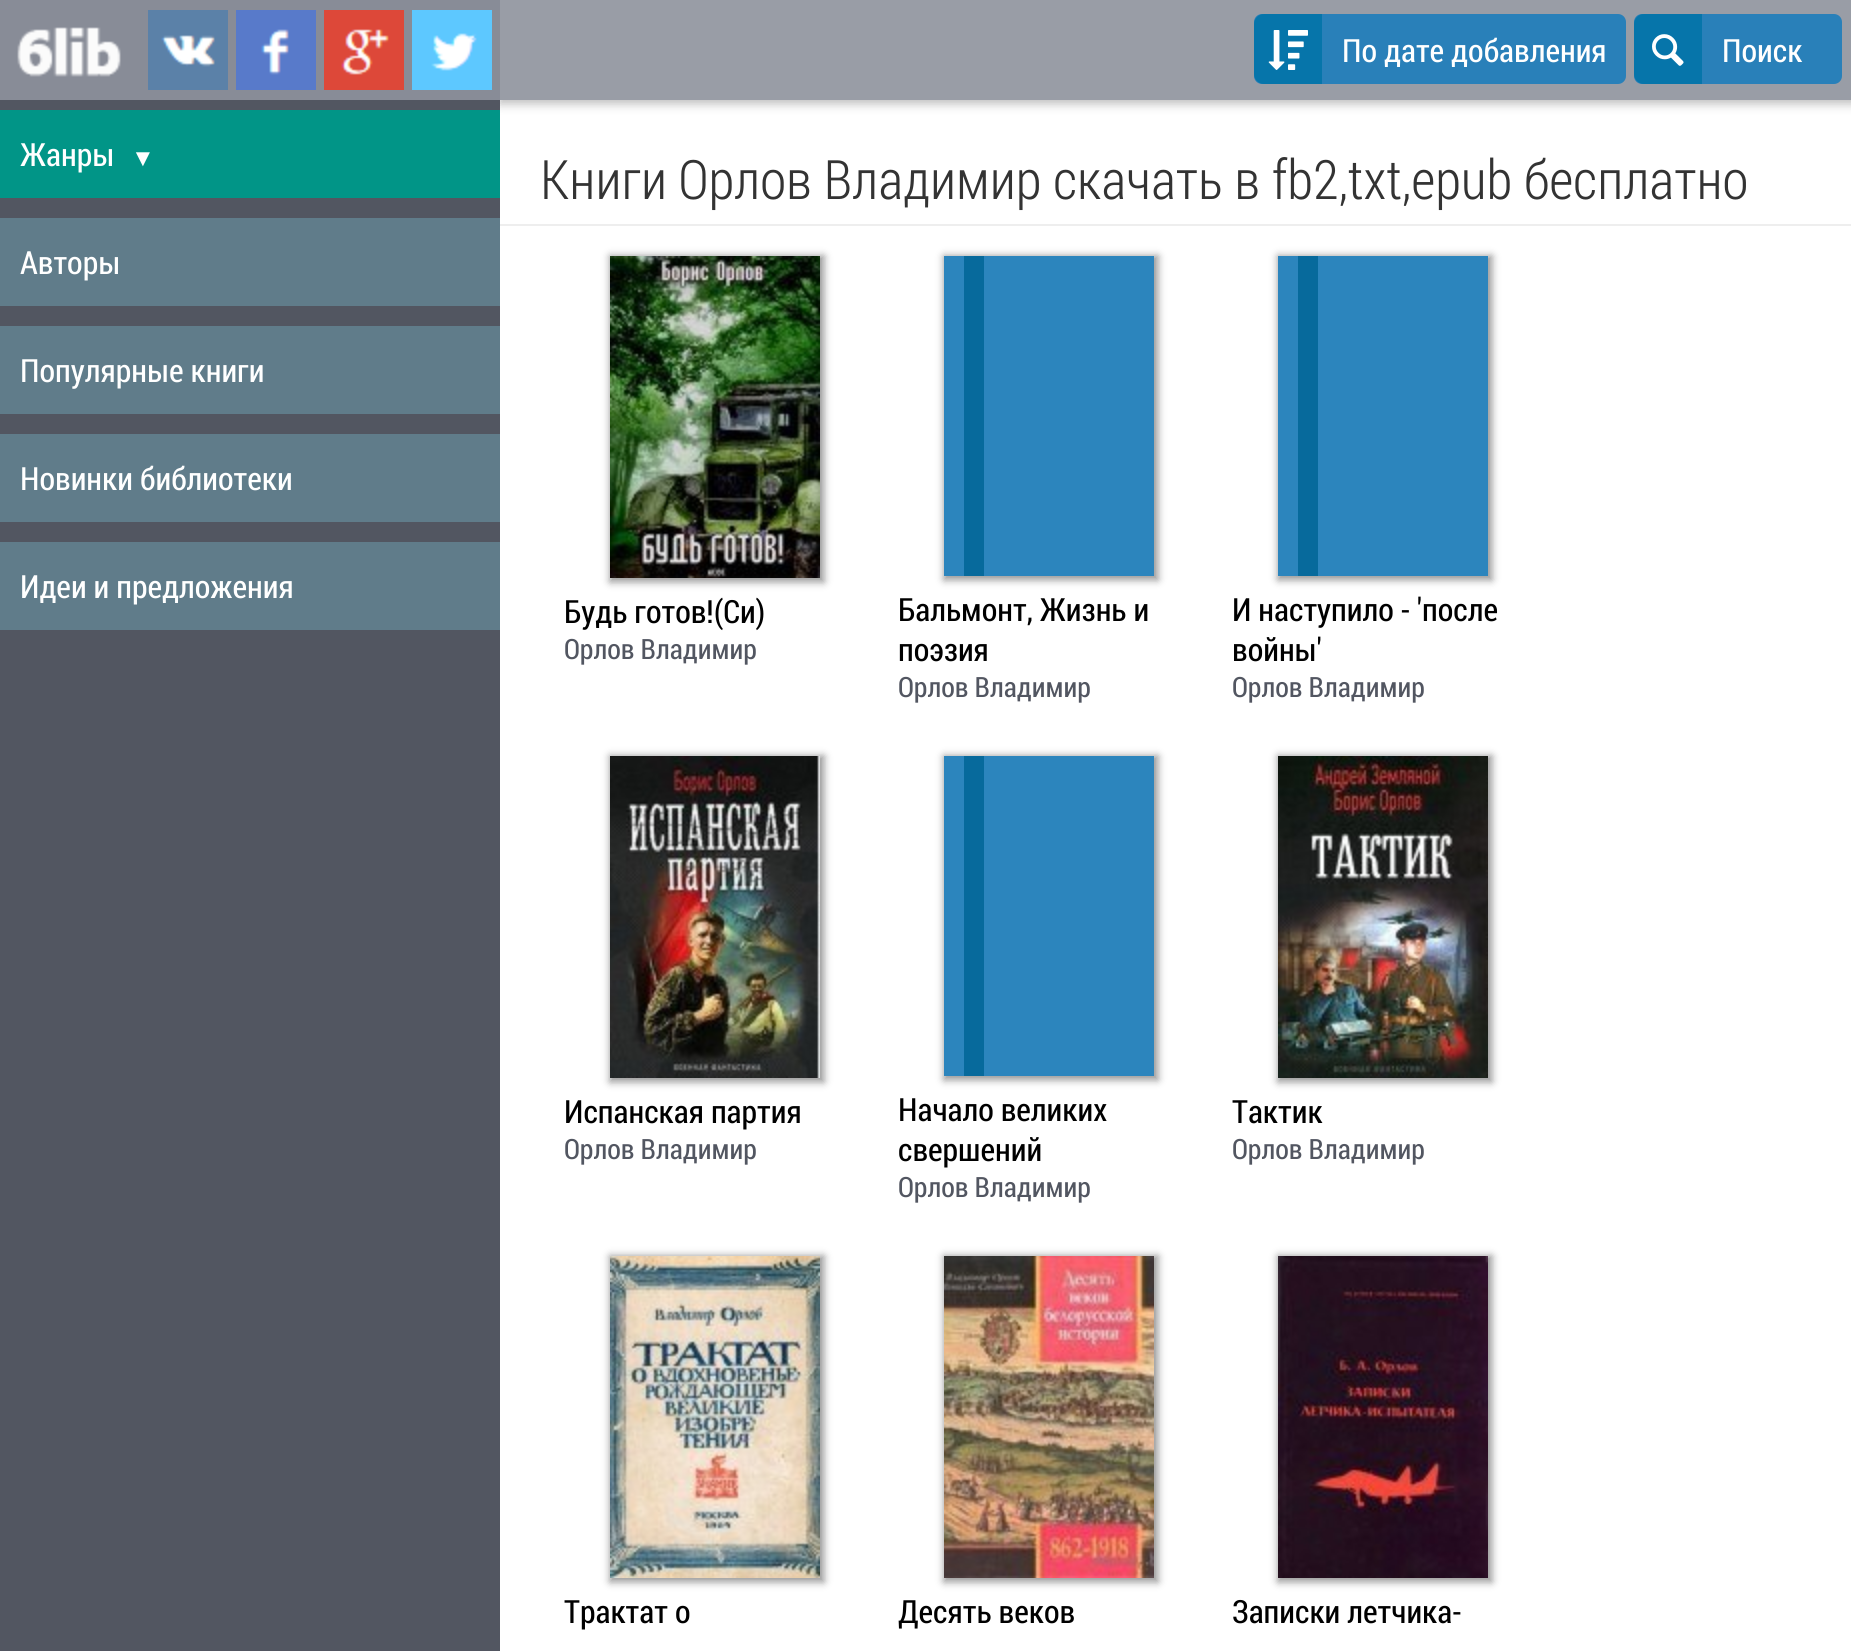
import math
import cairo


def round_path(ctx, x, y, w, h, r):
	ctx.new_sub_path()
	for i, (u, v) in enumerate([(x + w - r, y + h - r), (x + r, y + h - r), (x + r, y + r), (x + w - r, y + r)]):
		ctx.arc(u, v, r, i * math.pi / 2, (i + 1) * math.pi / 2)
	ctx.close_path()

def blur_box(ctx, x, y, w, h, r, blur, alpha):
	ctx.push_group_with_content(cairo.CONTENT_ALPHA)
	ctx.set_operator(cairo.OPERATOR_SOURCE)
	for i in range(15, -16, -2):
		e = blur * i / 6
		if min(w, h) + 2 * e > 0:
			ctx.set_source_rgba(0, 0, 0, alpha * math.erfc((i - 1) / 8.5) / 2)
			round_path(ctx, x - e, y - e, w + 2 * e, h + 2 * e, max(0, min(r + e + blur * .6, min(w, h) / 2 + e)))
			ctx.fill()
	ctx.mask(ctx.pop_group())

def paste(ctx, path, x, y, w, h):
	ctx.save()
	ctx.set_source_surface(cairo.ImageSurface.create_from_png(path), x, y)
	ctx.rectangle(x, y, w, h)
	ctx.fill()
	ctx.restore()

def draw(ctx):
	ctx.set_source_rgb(1, 1, 1)
	ctx.paint()
	ctx.set_source_rgb(0, 0, 0)
	blur_box(ctx, 500, 4, 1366, 100, 0, 5, 0.26)
	ctx.set_source_rgb(0.322, 0.337, 0.38)
	ctx.rectangle(0, 100, 500, 1551)
	ctx.fill()
	ctx.set_source_rgb(0.533, 0.549, 0.592)
	ctx.rectangle(0, 0, 500, 100)
	ctx.fill()
	paste(ctx, 'media/1.png', 17, 27, 104, 50)
	paste(ctx, 'media/2.png', 148, 10, 80, 80)
	paste(ctx, 'media/3.png', 236, 10, 80, 80)
	paste(ctx, 'media/4.png', 324, 10, 80, 80)
	paste(ctx, 'media/5.png', 412, 10, 80, 80)
	ctx.set_source_rgb(0.004, 0.584, 0.529)
	ctx.rectangle(0, 110, 500, 88)
	ctx.fill()
	ctx.select_font_face('Roboto Condensed')
	ctx.set_font_size(32)
	ctx.set_source_rgb(1, 1, 1)
	ctx.move_to(20, 166)
	ctx.show_text('Жанры')
	ctx.select_font_face('Liberation Serif')
	ctx.set_font_size(24)
	ctx.move_to(131, 166)
	ctx.show_text('▼')
	ctx.set_source_rgb(0.376, 0.486, 0.541)
	ctx.rectangle(0, 218, 500, 88)
	ctx.fill()
	ctx.select_font_face('Roboto Condensed')
	ctx.set_font_size(32)
	ctx.set_source_rgb(1, 1, 1)
	ctx.move_to(20, 274)
	ctx.show_text('Авторы')
	ctx.set_source_rgb(0.376, 0.486, 0.541)
	ctx.rectangle(0, 326, 500, 88)
	ctx.fill()
	ctx.set_source_rgb(1, 1, 1)
	ctx.move_to(20, 382)
	ctx.show_text('Популярные книги')
	ctx.set_source_rgb(0.376, 0.486, 0.541)
	ctx.rectangle(0, 434, 500, 88)
	ctx.fill()
	ctx.set_source_rgb(1, 1, 1)
	ctx.move_to(20, 490)
	ctx.show_text('Новинки библиотеки')
	ctx.set_source_rgb(0.376, 0.486, 0.541)
	ctx.rectangle(0, 542, 500, 88)
	ctx.fill()
	ctx.set_source_rgb(1, 1, 1)
	ctx.move_to(20, 598)
	ctx.show_text('Идеи и предложения')
	ctx.set_source_rgb(0.6, 0.616, 0.651)
	ctx.rectangle(500, 0, 1351, 100)
	ctx.fill()
	ctx.set_source_rgb(0.161, 0.502, 0.725)
	round_path(ctx, 1254, 14, 372, 70, 8)
	ctx.fill()
	ctx.set_source_rgb(0.027, 0.459, 0.667)
	ctx.new_path()
	ctx.move_to(1264, 14)
	ctx.line_to(1322, 14)
	ctx.line_to(1322, 84)
	ctx.line_to(1264, 84)
	ctx.curve_to(1258.5, 84, 1254, 79.5, 1254, 74)
	ctx.line_to(1254, 24)
	ctx.curve_to(1254, 18.5, 1258.5, 14, 1264, 14)
	ctx.close_path()
	ctx.fill()
	paste(ctx, 'media/6.png', 1268, 30, 40, 40)
	ctx.set_source_rgb(1, 1, 1)
	ctx.move_to(1342, 62)
	ctx.show_text('По дате добавления')
	ctx.set_source_rgb(0.161, 0.502, 0.725)
	round_path(ctx, 1634, 14, 208, 70, 8)
	ctx.fill()
	ctx.set_source_rgb(0.027, 0.459, 0.667)
	ctx.new_path()
	ctx.move_to(1644, 14)
	ctx.line_to(1702, 14)
	ctx.line_to(1702, 84)
	ctx.line_to(1644, 84)
	ctx.curve_to(1638.5, 84, 1634, 79.5, 1634, 74)
	ctx.line_to(1634, 24)
	ctx.curve_to(1634, 18.5, 1638.5, 14, 1644, 14)
	ctx.close_path()
	ctx.fill()
	paste(ctx, 'media/7.png', 1652, 34, 32, 32)
	ctx.set_source_rgb(1, 1, 1)
	ctx.move_to(1722, 62)
	ctx.show_text('Поиск')
	ctx.set_source_rgb(0.933, 0.933, 0.933)
	ctx.rectangle(500, 224, 1351, 2)
	ctx.fill()
	ctx.select_font_face('Roboto Condensed Light')
	ctx.set_font_size(54.4)
	ctx.set_source_rgb(0.2, 0.2, 0.2)
	ctx.move_to(540, 199)
	ctx.show_text('Книги Орлов Владимир скачать в fb2,txt,epub бесплатно')
	ctx.set_source_rgb(0.588, 0.588, 0.588)
	blur_box(ctx, 610, 256, 214, 326, 0, 4, 1)
	paste(ctx, 'media/8.png', 610, 256, 210, 322)
	ctx.select_font_face('Roboto Condensed')
	ctx.set_font_size(32)
	ctx.set_source_rgb(0, 0, 0)
	ctx.move_to(564, 623)
	ctx.show_text('Будь готов!(Си)')
	ctx.set_font_size(28)
	ctx.set_source_rgb(0.322, 0.337, 0.38)
	ctx.move_to(564, 659)
	ctx.show_text('Орлов Владимир')
	ctx.set_source_rgb(0.588, 0.588, 0.588)
	blur_box(ctx, 944, 256, 214, 324, 0, 4, 1)
	ctx.set_source_rgb(0.173, 0.522, 0.741)
	ctx.rectangle(944, 256, 210, 320)
	ctx.fill()
	ctx.set_source_rgb(0.031, 0.416, 0.612)
	ctx.rectangle(964, 256, 20, 320)
	ctx.fill()
	ctx.set_font_size(32)
	ctx.set_source_rgb(0, 0, 0)
	ctx.move_to(898, 621)
	ctx.show_text('Бальмонт, Жизнь и')
	ctx.move_to(898, 661)
	ctx.show_text('поэзия')
	ctx.set_font_size(28)
	ctx.set_source_rgb(0.322, 0.337, 0.38)
	ctx.move_to(898, 697)
	ctx.show_text('Орлов Владимир')
	ctx.set_source_rgb(0.588, 0.588, 0.588)
	blur_box(ctx, 1278, 256, 214, 324, 0, 4, 1)
	ctx.set_source_rgb(0.173, 0.522, 0.741)
	ctx.rectangle(1278, 256, 210, 320)
	ctx.fill()
	ctx.set_source_rgb(0.031, 0.416, 0.612)
	ctx.rectangle(1298, 256, 20, 320)
	ctx.fill()
	ctx.set_font_size(32)
	ctx.set_source_rgb(0, 0, 0)
	ctx.move_to(1232, 621)
	ctx.show_text('И наступило - \'после')
	ctx.move_to(1232, 661)
	ctx.show_text('войны\'')
	ctx.set_font_size(28)
	ctx.set_source_rgb(0.322, 0.337, 0.38)
	ctx.move_to(1232, 697)
	ctx.show_text('Орлов Владимир')
	ctx.set_source_rgb(0.588, 0.588, 0.588)
	blur_box(ctx, 610, 756, 214, 326, 0, 4, 1)
	paste(ctx, 'media/9.png', 610, 756, 210, 322)
	ctx.set_font_size(32)
	ctx.set_source_rgb(0, 0, 0)
	ctx.move_to(564, 1123)
	ctx.show_text('Испанская партия')
	ctx.set_font_size(28)
	ctx.set_source_rgb(0.322, 0.337, 0.38)
	ctx.move_to(564, 1159)
	ctx.show_text('Орлов Владимир')
	ctx.set_source_rgb(0.588, 0.588, 0.588)
	blur_box(ctx, 944, 756, 214, 324, 0, 4, 1)
	ctx.set_source_rgb(0.173, 0.522, 0.741)
	ctx.rectangle(944, 756, 210, 320)
	ctx.fill()
	ctx.set_source_rgb(0.031, 0.416, 0.612)
	ctx.rectangle(964, 756, 20, 320)
	ctx.fill()
	ctx.set_font_size(32)
	ctx.set_source_rgb(0, 0, 0)
	ctx.move_to(898, 1121)
	ctx.show_text('Начало великих')
	ctx.move_to(898, 1161)
	ctx.show_text('свершений')
	ctx.set_font_size(28)
	ctx.set_source_rgb(0.322, 0.337, 0.38)
	ctx.move_to(898, 1197)
	ctx.show_text('Орлов Владимир')
	ctx.set_source_rgb(0.588, 0.588, 0.588)
	blur_box(ctx, 1278, 756, 214, 326, 0, 4, 1)
	paste(ctx, 'media/10.png', 1278, 756, 210, 322)
	ctx.set_font_size(32)
	ctx.set_source_rgb(0, 0, 0)
	ctx.move_to(1232, 1123)
	ctx.show_text('Тактик')
	ctx.set_font_size(28)
	ctx.set_source_rgb(0.322, 0.337, 0.38)
	ctx.move_to(1232, 1159)
	ctx.show_text('Орлов Владимир')
	ctx.set_source_rgb(0.588, 0.588, 0.588)
	blur_box(ctx, 610, 1256, 214, 326, 0, 4, 1)
	paste(ctx, 'media/11.png', 610, 1256, 210, 322)
	ctx.set_font_size(32)
	ctx.set_source_rgb(0, 0, 0)
	ctx.move_to(564, 1623)
	ctx.show_text('Трактат о')
	ctx.set_source_rgb(0.588, 0.588, 0.588)
	blur_box(ctx, 944, 1256, 214, 326, 0, 4, 1)
	paste(ctx, 'media/12.png', 944, 1256, 210, 322)
	ctx.set_source_rgb(0, 0, 0)
	ctx.move_to(898, 1623)
	ctx.show_text('Десять веков')
	ctx.set_source_rgb(0.588, 0.588, 0.588)
	blur_box(ctx, 1278, 1256, 214, 326, 0, 4, 1)
	paste(ctx, 'media/13.png', 1278, 1256, 210, 322)
	ctx.set_source_rgb(0, 0, 0)
	ctx.move_to(1232, 1623)
	ctx.show_text('Записки летчика-')


surface = cairo.ImageSurface(cairo.FORMAT_RGB24, 1851, 1651)
ctx = cairo.Context(surface)
options = cairo.FontOptions()
options.set_hint_metrics(cairo.HINT_METRICS_OFF)
options.set_hint_style(cairo.HINT_STYLE_NONE)
ctx.set_font_options(options)
ctx.set_miter_limit(4)
draw(ctx)
surface.write_to_png('image.png')
